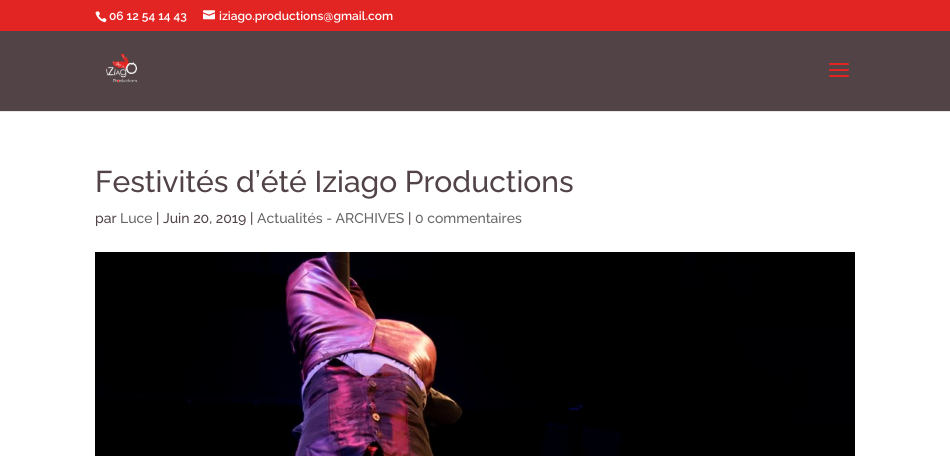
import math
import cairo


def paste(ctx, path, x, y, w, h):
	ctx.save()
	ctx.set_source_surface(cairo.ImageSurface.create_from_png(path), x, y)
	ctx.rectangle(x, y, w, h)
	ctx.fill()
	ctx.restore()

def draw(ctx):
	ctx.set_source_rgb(1, 1, 1)
	ctx.paint()
	ctx.set_source_rgb(0.886, 0.145, 0.137)
	ctx.rectangle(0, 0, 950, 31)
	ctx.fill()
	paste(ctx, 'media/1.png', 95, 11, 12, 12)
	ctx.select_font_face('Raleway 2 Thin')
	ctx.set_font_size(12)
	ctx.set_source_rgb(1, 1, 1)
	ctx.move_to(109, 20)
	ctx.show_text('06 12 54 14 43')
	paste(ctx, 'media/2.png', 203, 10, 12, 10)
	ctx.move_to(219, 20)
	ctx.show_text('iziago.productions@gmail.com')
	ctx.set_source_rgb(0.902, 0.902, 0.902)
	ctx.rectangle(0, 111, 950, 1)
	ctx.fill()
	ctx.set_source_rgb(0.318, 0.263, 0.275)
	ctx.rectangle(0, 31, 950, 80)
	ctx.fill()
	paste(ctx, 'media/3.png', 106, 53, 31, 30)
	paste(ctx, 'media/4.png', 829, 63, 20, 14)
	ctx.select_font_face('Raleway Thin')
	ctx.set_font_size(30)
	ctx.move_to(95, 192)
	ctx.show_text('Festivités d’été Iziago Productions')
	ctx.set_font_size(14)
	ctx.move_to(95, 223)
	ctx.show_text('par')
	ctx.set_source_rgb(0.4, 0.4, 0.4)
	ctx.move_to(120, 223)
	ctx.show_text('Luce')
	ctx.set_source_rgb(0.318, 0.263, 0.275)
	ctx.move_to(156, 223)
	ctx.show_text('| Juin 20, 2019 |')
	ctx.set_source_rgb(0.4, 0.4, 0.4)
	ctx.move_to(257, 223)
	ctx.show_text('Actualités - ARCHIVES')
	ctx.set_source_rgb(0.318, 0.263, 0.275)
	ctx.move_to(408, 223)
	ctx.show_text('|')
	ctx.set_source_rgb(0.4, 0.4, 0.4)
	ctx.move_to(415, 223)
	ctx.show_text('0 commentaires')
	paste(ctx, 'media/5.png', 95, 252, 760, 204)


surface = cairo.ImageSurface(cairo.FORMAT_RGB24, 950, 456)
ctx = cairo.Context(surface)
options = cairo.FontOptions()
options.set_hint_metrics(cairo.HINT_METRICS_OFF)
options.set_hint_style(cairo.HINT_STYLE_NONE)
ctx.set_font_options(options)
ctx.set_miter_limit(4)
draw(ctx)
surface.write_to_png('image.png')
